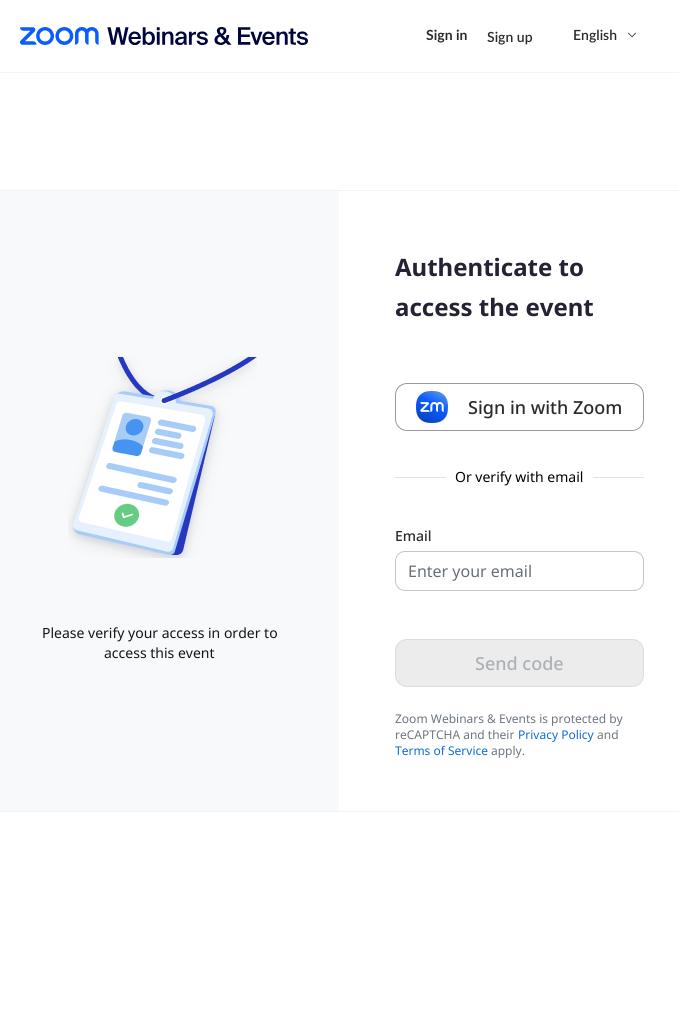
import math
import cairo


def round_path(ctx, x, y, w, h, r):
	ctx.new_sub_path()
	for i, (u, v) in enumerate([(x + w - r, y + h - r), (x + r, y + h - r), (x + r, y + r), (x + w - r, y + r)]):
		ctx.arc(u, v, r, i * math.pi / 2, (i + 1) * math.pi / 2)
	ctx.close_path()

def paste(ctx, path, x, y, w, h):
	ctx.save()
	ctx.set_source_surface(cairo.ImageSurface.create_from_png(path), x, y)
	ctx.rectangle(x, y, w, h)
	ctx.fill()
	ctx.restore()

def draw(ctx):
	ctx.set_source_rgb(1, 1, 1)
	ctx.paint()
	ctx.set_source_rgba(0.137, 0.137, 0.2, 0.04)
	ctx.rectangle(0, 72, 679, 1)
	ctx.fill()
	paste(ctx, 'media/1.png', 20, 27, 288, 18)
	ctx.select_font_face('Lato', cairo.FONT_SLANT_NORMAL, cairo.FONT_WEIGHT_BOLD)
	ctx.set_font_size(14)
	ctx.set_source_rgb(0.165, 0.169, 0.176)
	ctx.move_to(426, 40)
	ctx.show_text('Sign in')
	ctx.select_font_face('Lato SemiBold')
	ctx.move_to(487, 42)
	ctx.show_text('Sign up')
	ctx.move_to(573, 40)
	ctx.show_text('English')
	paste(ctx, 'media/2.png', 628, 32, 8, 6)
	round_path(ctx, -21.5, 190.5, 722, 621, 23.5)
	ctx.set_source_rgb(0.945, 0.957, 0.965)
	ctx.set_line_width(1)
	ctx.stroke()
	ctx.set_source_rgb(0.969, 0.976, 0.98)
	ctx.new_path()
	ctx.move_to(3, 191)
	ctx.line_to(339, 191)
	ctx.line_to(339, 811)
	ctx.line_to(3, 811)
	ctx.curve_to(-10.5, 811, -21, 800.5, -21, 787)
	ctx.line_to(-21, 215)
	ctx.curve_to(-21, 201.5, -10.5, 191, 3, 191)
	ctx.close_path()
	ctx.fill()
	paste(ctx, 'media/3.png', 68, 356, 189, 202)
	ctx.select_font_face('Noto Sans')
	ctx.set_source_rgb(0.075, 0.086, 0.098)
	ctx.move_to(42, 638)
	ctx.show_text('Please verify your access in order to')
	ctx.move_to(104, 658)
	ctx.show_text('access this event')
	ctx.select_font_face('Noto Sans', cairo.FONT_SLANT_NORMAL, cairo.FONT_WEIGHT_BOLD)
	ctx.set_font_size(24)
	ctx.set_source_rgb(0.137, 0.137, 0.2)
	ctx.move_to(395, 276)
	ctx.show_text('Authenticate to')
	ctx.move_to(395, 316)
	ctx.show_text('access the event')
	round_path(ctx, 395.5, 383.5, 248, 47, 11.5)
	ctx.set_source_rgb(0.576, 0.608, 0.643)
	ctx.stroke()
	paste(ctx, 'media/4.png', 416, 391, 32, 32)
	ctx.select_font_face('Noto Sans Medium')
	ctx.set_font_size(18)
	ctx.set_source_rgb(0.165, 0.169, 0.176)
	ctx.move_to(468, 414)
	ctx.show_text('Sign in with Zoom')
	ctx.set_source_rgb(0.875, 0.89, 0.91)
	ctx.rectangle(395, 477, 51, 1)
	ctx.fill()
	ctx.select_font_face('Noto Sans')
	ctx.set_font_size(14)
	ctx.set_source_rgb(0, 0, 0)
	ctx.move_to(455, 482)
	ctx.show_text('Or verify with email')
	ctx.set_source_rgb(0.875, 0.89, 0.91)
	ctx.rectangle(593, 477, 51, 1)
	ctx.fill()
	ctx.select_font_face('Noto Sans Medium')
	ctx.set_source_rgb(0.165, 0.169, 0.176)
	ctx.move_to(395, 541)
	ctx.show_text('Email')
	round_path(ctx, 395.5, 551.5, 248, 39, 9.5)
	ctx.set_source_rgb(0.757, 0.776, 0.808)
	ctx.stroke()
	ctx.select_font_face('Noto Sans')
	ctx.set_font_size(16)
	ctx.set_source_rgb(0.408, 0.435, 0.475)
	ctx.move_to(408, 577)
	ctx.show_text('Enter your email')
	ctx.set_source_rgb(0.922, 0.925, 0.929)
	round_path(ctx, 395, 639, 249, 48, 12)
	ctx.fill()
	round_path(ctx, 395.5, 639.5, 248, 47, 11.5)
	ctx.set_source_rgba(0.678, 0.694, 0.722, 0.25)
	ctx.stroke()
	ctx.select_font_face('Noto Sans Medium')
	ctx.set_font_size(18)
	ctx.set_source_rgb(0.678, 0.694, 0.722)
	ctx.move_to(475, 670)
	ctx.show_text('Send code')
	ctx.select_font_face('Noto Sans')
	ctx.set_font_size(12)
	ctx.set_source_rgb(0.431, 0.463, 0.502)
	ctx.move_to(395, 723)
	ctx.show_text('Zoom Webinars & Events is protected by')
	ctx.move_to(395, 739)
	ctx.show_text('reCAPTCHA and their')
	ctx.set_source_rgb(0.051, 0.42, 0.871)
	ctx.move_to(518, 739)
	ctx.show_text('Privacy Policy')
	ctx.set_source_rgb(0.431, 0.463, 0.502)
	ctx.move_to(597, 739)
	ctx.show_text('and')
	ctx.set_source_rgb(0.051, 0.42, 0.871)
	ctx.move_to(395, 755)
	ctx.show_text('Terms of Service')
	ctx.set_source_rgb(0.431, 0.463, 0.502)
	ctx.move_to(491, 755)
	ctx.show_text('apply.')


surface = cairo.ImageSurface(cairo.FORMAT_RGB24, 679, 1013)
ctx = cairo.Context(surface)
options = cairo.FontOptions()
options.set_hint_metrics(cairo.HINT_METRICS_OFF)
options.set_hint_style(cairo.HINT_STYLE_NONE)
ctx.set_font_options(options)
ctx.set_miter_limit(4)
draw(ctx)
surface.write_to_png('image.png')
